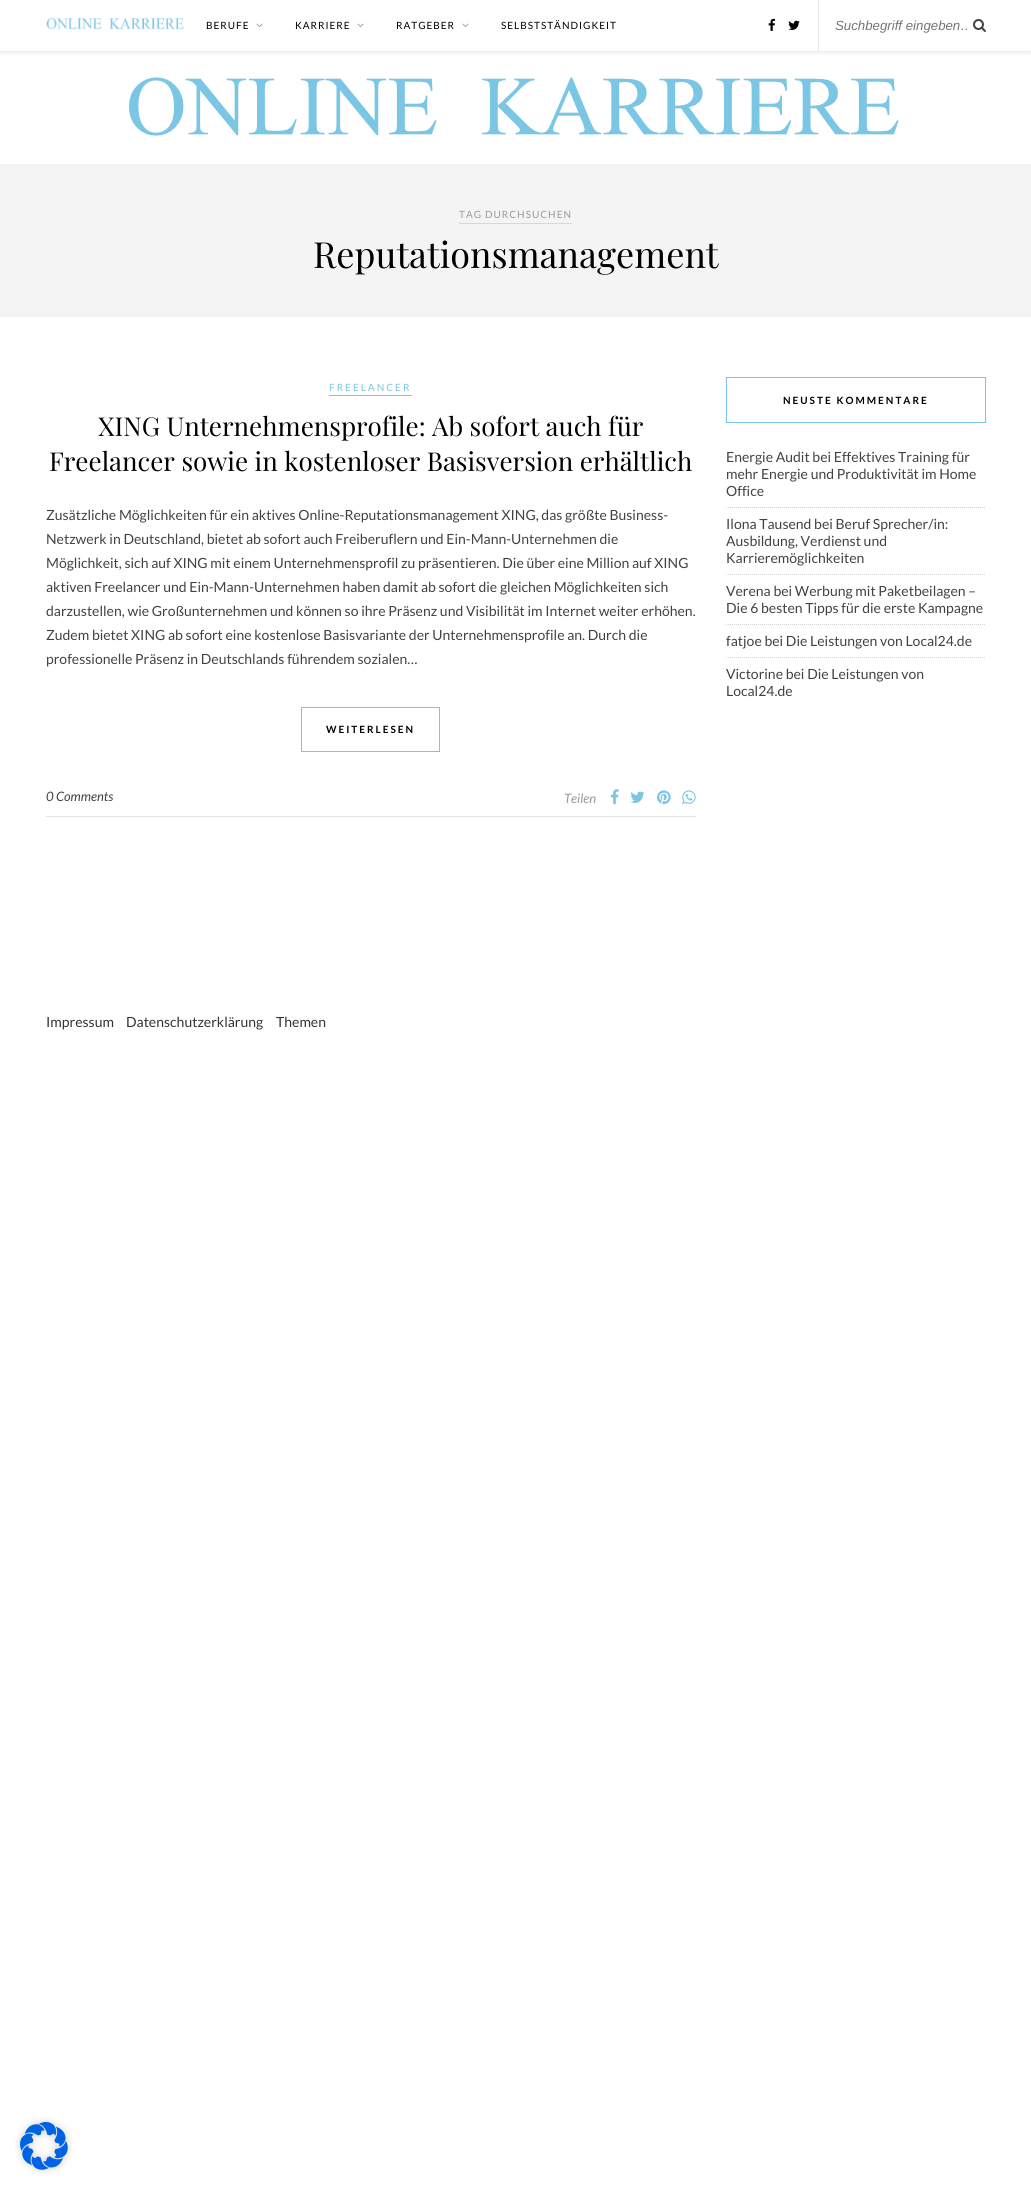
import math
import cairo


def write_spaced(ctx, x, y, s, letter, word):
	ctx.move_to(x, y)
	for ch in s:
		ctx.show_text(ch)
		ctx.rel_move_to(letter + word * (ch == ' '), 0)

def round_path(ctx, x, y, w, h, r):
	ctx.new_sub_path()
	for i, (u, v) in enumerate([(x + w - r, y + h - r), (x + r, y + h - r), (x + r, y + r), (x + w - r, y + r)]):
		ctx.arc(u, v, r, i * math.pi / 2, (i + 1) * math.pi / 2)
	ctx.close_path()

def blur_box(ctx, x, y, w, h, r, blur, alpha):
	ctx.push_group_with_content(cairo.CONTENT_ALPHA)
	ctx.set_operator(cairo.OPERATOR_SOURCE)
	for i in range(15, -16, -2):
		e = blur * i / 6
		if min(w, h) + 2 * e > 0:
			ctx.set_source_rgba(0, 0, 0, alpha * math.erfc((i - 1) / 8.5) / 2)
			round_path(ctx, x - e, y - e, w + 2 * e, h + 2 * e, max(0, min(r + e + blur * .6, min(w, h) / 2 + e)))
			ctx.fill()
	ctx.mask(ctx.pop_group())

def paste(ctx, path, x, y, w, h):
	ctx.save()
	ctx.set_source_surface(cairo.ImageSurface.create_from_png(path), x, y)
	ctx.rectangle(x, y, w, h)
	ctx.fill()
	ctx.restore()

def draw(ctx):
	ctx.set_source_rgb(1, 1, 1)
	ctx.paint()
	ctx.save()
	ctx.rectangle(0, 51, 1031, 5)
	ctx.clip()
	ctx.set_source_rgb(0.745, 0.745, 0.745)
	blur_box(ctx, 0, 1, 1031, 51, 0, 2.5, 0.46)
	ctx.restore()
	paste(ctx, 'media/1.png', 46, 17, 138, 13)
	ctx.select_font_face('Lato')
	ctx.set_font_size(10)
	ctx.set_source_rgb(0, 0, 0)
	write_spaced(ctx, 206, 29, 'BERUFE', 1, 0)
	paste(ctx, 'media/2.png', 256, 23, 7, 5)
	write_spaced(ctx, 295, 29, 'KARRIERE', 1, 0)
	paste(ctx, 'media/2.png', 357, 23, 7, 5)
	write_spaced(ctx, 396, 29, 'RATGEBER', 1, 0)
	paste(ctx, 'media/2.png', 462, 23, 7, 5)
	write_spaced(ctx, 501, 29, 'SELBSTSTÄNDIGKEIT', 1, 0)
	paste(ctx, 'media/3.png', 768, 18, 7, 13)
	paste(ctx, 'media/4.png', 788, 20, 12, 10)
	ctx.set_source_rgb(0.91, 0.91, 0.91)
	ctx.rectangle(818, 0, 1, 51)
	ctx.fill()
	ctx.save()
	ctx.rectangle(835, 18, 135, 15)
	ctx.clip()
	ctx.select_font_face('Liberation Sans', cairo.FONT_SLANT_ITALIC)
	ctx.set_font_size(13.25)
	ctx.set_source_rgb(0.459, 0.459, 0.459)
	ctx.move_to(835, 30)
	ctx.show_text('Suchbegriff eingeben…')
	ctx.restore()
	paste(ctx, 'media/5.png', 973, 19, 13, 13)
	paste(ctx, 'media/6.png', 128, 77, 771, 59)
	ctx.set_source_rgb(0.957, 0.957, 0.957)
	ctx.rectangle(0, 164, 1031, 153)
	ctx.fill()
	ctx.set_source_rgb(0.847, 0.847, 0.847)
	ctx.rectangle(459, 223, 113, 1)
	ctx.fill()
	ctx.set_source_rgb(0.6, 0.6, 0.6)
	write_spaced(ctx, 459, 218, 'TAG DURCHSUCHEN', 1, 0)
	ctx.select_font_face('Playfair Display')
	ctx.set_font_size(36)
	ctx.set_source_rgb(0, 0, 0)
	ctx.move_to(313, 268)
	ctx.show_text('Reputationsmanagement')
	ctx.set_source_rgb(0.482, 0.776, 0.898)
	ctx.rectangle(329, 395, 83, 1)
	ctx.fill()
	ctx.select_font_face('Lato')
	ctx.set_font_size(10)
	write_spaced(ctx, 329, 391, 'FREELANCER', 2, 0)
	ctx.select_font_face('Playfair Display')
	ctx.set_font_size(26)
	ctx.set_source_rgb(0, 0, 0)
	ctx.move_to(98, 436)
	ctx.show_text('XING Unternehmensprofile: Ab sofort auch für')
	ctx.move_to(49, 471)
	ctx.show_text('Freelancer sowie in kostenloser Basisversion erhältlich')
	ctx.select_font_face('Lato')
	ctx.set_font_size(14)
	ctx.set_source_rgb(0.259, 0.259, 0.259)
	for x, y, s in [
		(46, 520, 'Zusätzliche Möglichkeiten für ein aktives Online-Reputationsmanagement XING, das größte Business-'),
		(46, 544, 'Netzwerk in Deutschland, bietet ab sofort auch Freiberuflern und Ein-Mann-Unternehmen die'),
		(46, 568, 'Möglichkeit, sich auf XING mit einem Unternehmensprofil zu präsentieren. Die über eine Million auf XING'),
		(46, 592, 'aktiven Freelancer und Ein-Mann-Unternehmen haben damit ab sofort die gleichen Möglichkeiten sich'),
		(46, 616, 'darzustellen, wie Großunternehmen und können so ihre Präsenz und Visibilität im Internet weiter erhöhen.'),
		(46, 640, 'Zudem bietet XING ab sofort eine kostenlose Basisvariante der Unternehmensprofile an. Durch die'),
		(46, 664, 'professionelle Präsenz in Deutschlands führendem sozialen…'),
	]:
		ctx.move_to(x, y)
		ctx.show_text(s)
	ctx.rectangle(301.5, 707.5, 138, 44)
	ctx.set_source_rgb(0.482, 0.776, 0.898)
	ctx.set_line_width(1)
	ctx.stroke()
	ctx.select_font_face('Lato', cairo.FONT_SLANT_NORMAL, cairo.FONT_WEIGHT_BOLD)
	ctx.set_font_size(10)
	ctx.set_source_rgb(0, 0, 0)
	write_spaced(ctx, 326, 733, 'WEITERLESEN', 2, 0)
	ctx.set_source_rgb(0.898, 0.898, 0.898)
	ctx.rectangle(46, 816, 650, 1)
	ctx.fill()
	ctx.select_font_face('Lato', cairo.FONT_SLANT_ITALIC)
	ctx.set_font_size(13)
	ctx.set_source_rgb(0.259, 0.259, 0.259)
	ctx.move_to(46, 801)
	ctx.show_text('0 Comments')
	ctx.set_source_rgb(0.6, 0.6, 0.6)
	ctx.move_to(564, 803)
	ctx.show_text('Teilen')
	paste(ctx, 'media/7.png', 610, 789, 9, 16)
	paste(ctx, 'media/8.png', 630, 791, 15, 12)
	paste(ctx, 'media/9.png', 657, 790, 14, 15)
	paste(ctx, 'media/10.png', 682, 790, 14, 15)
	ctx.rectangle(726.5, 377.5, 259, 45)
	ctx.set_source_rgb(0.482, 0.776, 0.898)
	ctx.stroke()
	ctx.select_font_face('Lato', cairo.FONT_SLANT_NORMAL, cairo.FONT_WEIGHT_BOLD)
	ctx.set_font_size(10)
	ctx.set_source_rgb(0, 0, 0)
	write_spaced(ctx, 783, 404, 'NEUSTE KOMMENTARE', 2, 0)
	ctx.new_path()
	ctx.move_to(726, 507.5)
	ctx.line_to(986, 507.5)
	ctx.set_source_rgb(0.835, 0.835, 0.835)
	ctx.set_dash([1, 1])
	ctx.stroke()
	ctx.select_font_face('Lato')
	ctx.set_font_size(14)
	ctx.set_source_rgb(0.259, 0.259, 0.259)
	for x, y, s in [
		(726, 462, 'Energie Audit bei Effektives Training für'),
		(726, 479, 'mehr Energie und Produktivität im Home'),
		(726, 496, 'Office'),
	]:
		ctx.move_to(x, y)
		ctx.show_text(s)
	ctx.new_path()
	ctx.move_to(726, 574.5)
	ctx.line_to(986, 574.5)
	ctx.set_source_rgb(0.835, 0.835, 0.835)
	ctx.stroke()
	ctx.set_source_rgb(0.259, 0.259, 0.259)
	for x, y, s in [
		(726, 529, 'Ilona Tausend bei Beruf Sprecher/in:'),
		(726, 546, 'Ausbildung, Verdienst und'),
		(726, 563, 'Karrieremöglichkeiten'),
	]:
		ctx.move_to(x, y)
		ctx.show_text(s)
	ctx.new_path()
	ctx.move_to(726, 624.5)
	ctx.line_to(986, 624.5)
	ctx.set_source_rgb(0.835, 0.835, 0.835)
	ctx.stroke()
	ctx.set_source_rgb(0.259, 0.259, 0.259)
	ctx.move_to(726, 596)
	ctx.show_text('Verena bei Werbung mit Paketbeilagen –')
	ctx.move_to(726, 613)
	ctx.show_text('Die 6 besten Tipps für die erste Kampagne')
	ctx.new_path()
	ctx.move_to(726, 657.5)
	ctx.line_to(986, 657.5)
	ctx.set_source_rgb(0.835, 0.835, 0.835)
	ctx.stroke()
	ctx.set_source_rgb(0.259, 0.259, 0.259)
	for x, y, s in [
		(726, 646, 'fatjoe bei Die Leistungen von Local24.de'),
		(726, 679, 'Victorine bei Die Leistungen von'),
		(726, 696, 'Local24.de'),
	]:
		ctx.move_to(x, y)
		ctx.show_text(s)
	ctx.set_source_rgb(0.2, 0.2, 0.2)
	for x, y, s in [
		(46, 1027, 'Impressum'),
		(126, 1027, 'Datenschutzerklärung'),
		(276, 1027, 'Themen'),
	]:
		ctx.move_to(x, y)
		ctx.show_text(s)
	paste(ctx, 'media/11.png', 15, 2117, 57, 57)


surface = cairo.ImageSurface(cairo.FORMAT_RGB24, 1031, 2190)
ctx = cairo.Context(surface)
options = cairo.FontOptions()
options.set_hint_metrics(cairo.HINT_METRICS_OFF)
options.set_hint_style(cairo.HINT_STYLE_NONE)
ctx.set_font_options(options)
ctx.set_miter_limit(4)
draw(ctx)
surface.write_to_png('image.png')
